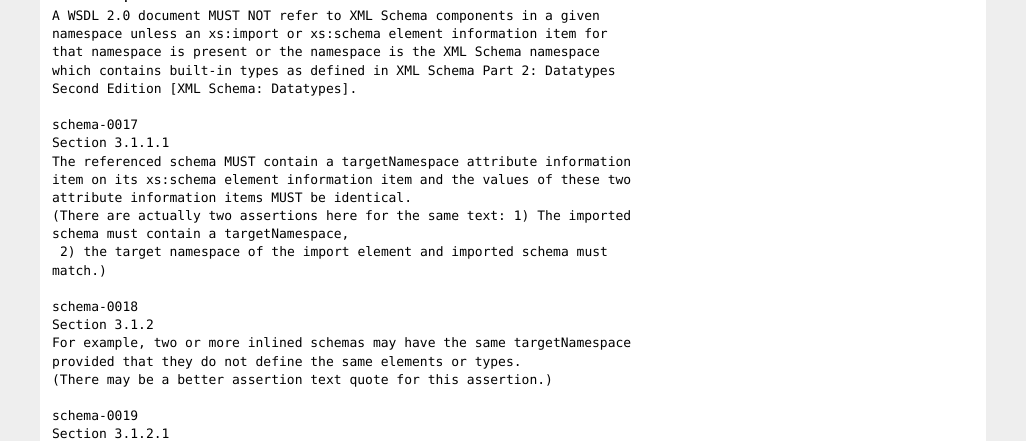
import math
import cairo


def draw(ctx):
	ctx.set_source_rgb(0.933, 0.933, 0.933)
	ctx.paint()
	ctx.set_source_rgb(1, 1, 1)
	ctx.rectangle(40, 0, 946, 441)
	ctx.fill()
	ctx.select_font_face('DejaVu Sans Mono')
	ctx.set_font_size(13)
	ctx.set_source_rgb(0, 0, 0)
	for x, y, s in [
		(122, 2, '.'),
		(52, 20, 'A WSDL 2.0 document MUST NOT refer to XML Schema components in a given'),
		(52, 38, 'namespace unless an xs:import or xs:schema element information item for'),
		(52, 56, 'that namespace is present or the namespace is the XML Schema namespace'),
		(52, 75, 'which contains built-in types as defined in XML Schema Part 2: Datatypes'),
		(52, 93, 'Second Edition [XML Schema: Datatypes].'),
		(52, 129, 'schema-0017'),
		(52, 147, 'Section 3.1.1.1'),
		(52, 166, 'The referenced schema MUST contain a targetNamespace attribute information'),
		(52, 184, 'item on its xs:schema element information item and the values of these two'),
		(52, 202, 'attribute information items MUST be identical.'),
		(52, 220, '(There are actually two assertions here for the same text: 1) The imported'),
		(52, 238, 'schema must contain a targetNamespace,'),
		(60, 256, '2) the target namespace of the import element and imported schema must'),
		(52, 275, 'match.)'),
		(52, 311, 'schema-0018'),
		(52, 329, 'Section 3.1.2'),
		(52, 347, 'For example, two or more inlined schemas may have the same targetNamespace'),
		(52, 366, 'provided that they do not define the same elements or types.'),
		(52, 384, '(There may be a better assertion text quote for this assertion.)'),
		(52, 420, 'schema-0019'),
		(52, 438, 'Section 3.1.2.1'),
	]:
		ctx.move_to(x, y)
		ctx.show_text(s)


surface = cairo.ImageSurface(cairo.FORMAT_RGB24, 1026, 441)
ctx = cairo.Context(surface)
options = cairo.FontOptions()
options.set_hint_metrics(cairo.HINT_METRICS_OFF)
options.set_hint_style(cairo.HINT_STYLE_NONE)
ctx.set_font_options(options)
ctx.set_miter_limit(4)
draw(ctx)
surface.write_to_png('image.png')
